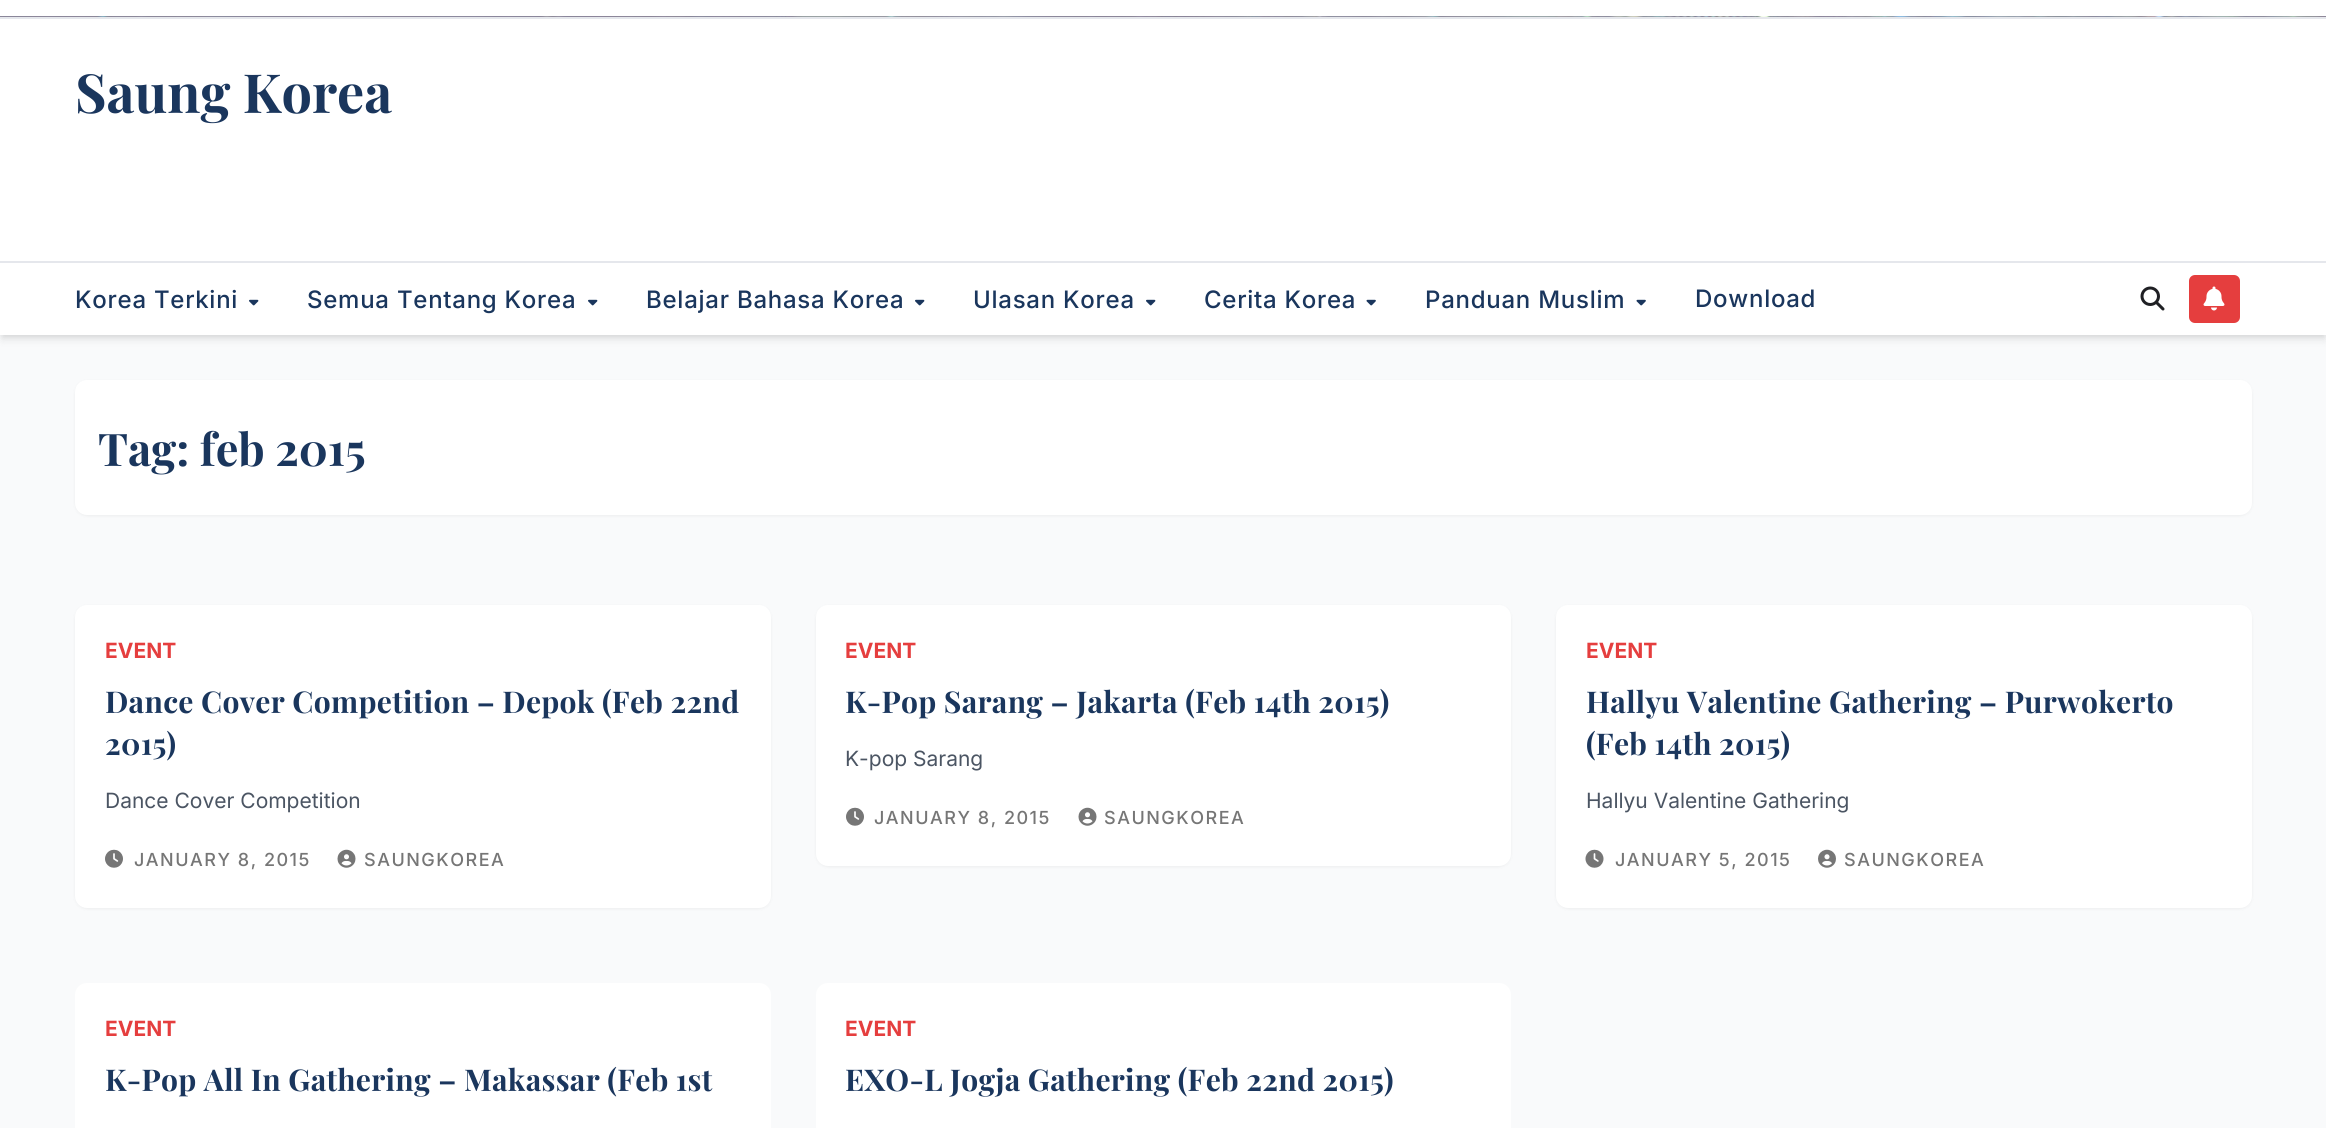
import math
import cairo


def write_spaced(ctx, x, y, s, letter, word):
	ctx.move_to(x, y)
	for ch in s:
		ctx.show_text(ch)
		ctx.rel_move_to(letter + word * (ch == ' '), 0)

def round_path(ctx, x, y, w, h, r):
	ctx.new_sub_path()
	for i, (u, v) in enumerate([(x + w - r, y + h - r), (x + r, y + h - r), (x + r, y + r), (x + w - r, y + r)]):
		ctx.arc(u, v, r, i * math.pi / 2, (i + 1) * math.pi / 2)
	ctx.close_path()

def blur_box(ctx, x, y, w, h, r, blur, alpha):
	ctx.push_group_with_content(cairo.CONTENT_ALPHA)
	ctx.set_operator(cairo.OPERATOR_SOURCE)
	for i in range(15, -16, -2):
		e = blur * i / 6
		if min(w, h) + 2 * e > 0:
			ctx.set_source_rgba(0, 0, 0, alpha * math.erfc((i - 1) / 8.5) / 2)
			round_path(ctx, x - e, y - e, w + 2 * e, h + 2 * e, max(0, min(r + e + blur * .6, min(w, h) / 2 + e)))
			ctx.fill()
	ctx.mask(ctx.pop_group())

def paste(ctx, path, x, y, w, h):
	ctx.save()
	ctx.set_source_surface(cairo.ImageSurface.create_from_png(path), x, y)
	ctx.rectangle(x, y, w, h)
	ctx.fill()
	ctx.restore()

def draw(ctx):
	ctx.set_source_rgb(0.976, 0.98, 0.984)
	ctx.paint()
	ctx.set_source_rgb(0, 0, 0)
	blur_box(ctx, 3, 6, 2321, 329, 0, 3, 0.1)
	blur_box(ctx, 2, 8, 2323, 331, 0, 4.5, 0.1)
	ctx.set_source_rgb(1, 1, 1)
	ctx.rectangle(0, 0, 2326, 17)
	ctx.fill()
	paste(ctx, 'media/1.png', 0, 16, 2326, 1)
	ctx.rectangle(0, 19, 2326, 242)
	ctx.fill()
	ctx.set_source_rgb(0.898, 0.906, 0.922)
	ctx.rectangle(0, 17, 2326, 2)
	ctx.rectangle(0, 261, 2326, 2)
	ctx.fill()
	ctx.select_font_face('Playfair Display', cairo.FONT_SLANT_NORMAL, cairo.FONT_WEIGHT_BOLD)
	ctx.set_font_size(54)
	ctx.set_source_rgb(0.102, 0.212, 0.365)
	ctx.move_to(75, 113)
	ctx.show_text('Saung Korea')
	ctx.set_source_rgb(1, 1, 1)
	ctx.rectangle(0, 263, 2326, 72)
	ctx.fill()
	ctx.select_font_face('Inter Medium')
	ctx.set_font_size(24)
	ctx.set_source_rgb(0.102, 0.212, 0.365)
	write_spaced(ctx, 75, 308, 'Korea Terkini', 0.75, 0)
	paste(ctx, 'media/2.png', 249, 299, 10, 7)
	write_spaced(ctx, 307, 308, 'Semua Tentang Korea', 0.75, 0)
	paste(ctx, 'media/2.png', 588, 299, 10, 7)
	write_spaced(ctx, 646, 308, 'Belajar Bahasa Korea', 0.75, 0)
	paste(ctx, 'media/2.png', 915, 299, 10, 7)
	write_spaced(ctx, 973, 308, 'Ulasan Korea', 0.75, 0)
	paste(ctx, 'media/2.png', 1146, 299, 10, 7)
	write_spaced(ctx, 1204, 308, 'Cerita Korea', 0.75, 0)
	paste(ctx, 'media/3.png', 1366, 299, 10, 7)
	write_spaced(ctx, 1425, 308, 'Panduan Muslim', 0.75, 0)
	paste(ctx, 'media/3.png', 1636, 299, 10, 7)
	write_spaced(ctx, 1695, 307, 'Download', 0.75, 0)
	paste(ctx, 'media/4.png', 2140, 286, 25, 25)
	ctx.set_source_rgb(0.898, 0.243, 0.243)
	round_path(ctx, 2189, 275, 51, 48, 6)
	ctx.fill()
	paste(ctx, 'media/5.png', 2203, 286, 22, 25)
	ctx.set_source_rgb(0, 0, 0)
	blur_box(ctx, 75, 381, 2177, 135, 12, 1.5, 0.05)
	ctx.set_source_rgb(1, 1, 1)
	round_path(ctx, 75, 380, 2177, 135, 12)
	ctx.fill()
	ctx.select_font_face('Playfair Display', cairo.FONT_SLANT_NORMAL, cairo.FONT_WEIGHT_BOLD)
	ctx.set_font_size(45)
	ctx.set_source_rgb(0.102, 0.212, 0.365)
	ctx.move_to(98, 466)
	ctx.show_text('Tag: feb 2015')
	ctx.set_source_rgb(0, 0, 0)
	blur_box(ctx, 75, 606, 696, 303, 12, 1.5, 0.05)
	ctx.set_source_rgb(1, 1, 1)
	round_path(ctx, 75, 605, 696, 303, 12)
	ctx.fill()
	ctx.select_font_face('Inter', cairo.FONT_SLANT_NORMAL, cairo.FONT_WEIGHT_BOLD)
	ctx.set_font_size(21)
	ctx.set_source_rgb(0.898, 0.243, 0.243)
	ctx.move_to(105, 658)
	ctx.show_text('EVENT')
	ctx.select_font_face('Playfair Display', cairo.FONT_SLANT_NORMAL, cairo.FONT_WEIGHT_BOLD)
	ctx.set_font_size(30)
	ctx.set_source_rgb(0.102, 0.212, 0.365)
	write_spaced(ctx, 105, 713, 'Dance Cover Competition – Depok (Feb 22nd', 0.3, 0)
	write_spaced(ctx, 105, 755, '2015)', 0.3, 0)
	ctx.select_font_face('Inter')
	ctx.set_font_size(21)
	ctx.set_source_rgb(0.294, 0.333, 0.388)
	ctx.move_to(105, 808)
	ctx.show_text('Dance Cover Competition')
	paste(ctx, 'media/6.png', 105, 849, 18, 19)
	ctx.select_font_face('Inter Medium')
	ctx.set_font_size(18)
	ctx.set_source_rgb(0.463, 0.463, 0.463)
	write_spaced(ctx, 134, 866, 'JANUARY 8, 2015', 1.5, 0)
	paste(ctx, 'media/7.png', 337, 849, 19, 19)
	write_spaced(ctx, 364, 866, 'SAUNGKOREA', 1.5, 0)
	ctx.set_source_rgb(0, 0, 0)
	blur_box(ctx, 816, 606, 695, 261, 12, 1.5, 0.05)
	ctx.set_source_rgb(1, 1, 1)
	round_path(ctx, 816, 605, 695, 261, 12)
	ctx.fill()
	ctx.select_font_face('Inter', cairo.FONT_SLANT_NORMAL, cairo.FONT_WEIGHT_BOLD)
	ctx.set_font_size(21)
	ctx.set_source_rgb(0.898, 0.243, 0.243)
	ctx.move_to(845, 658)
	ctx.show_text('EVENT')
	ctx.select_font_face('Playfair Display', cairo.FONT_SLANT_NORMAL, cairo.FONT_WEIGHT_BOLD)
	ctx.set_font_size(30)
	ctx.set_source_rgb(0.102, 0.212, 0.365)
	write_spaced(ctx, 845, 713, 'K-Pop Sarang – Jakarta (Feb 14th 2015)', 0.3, 0)
	ctx.select_font_face('Inter')
	ctx.set_font_size(21)
	ctx.set_source_rgb(0.294, 0.333, 0.388)
	ctx.move_to(845, 766)
	ctx.show_text('K-pop Sarang')
	paste(ctx, 'media/6.png', 846, 807, 18, 19)
	ctx.select_font_face('Inter Medium')
	ctx.set_font_size(18)
	ctx.set_source_rgb(0.463, 0.463, 0.463)
	write_spaced(ctx, 874, 824, 'JANUARY 8, 2015', 1.5, 0)
	paste(ctx, 'media/7.png', 1078, 807, 19, 19)
	write_spaced(ctx, 1104, 824, 'SAUNGKOREA', 1.5, 0)
	ctx.set_source_rgb(0, 0, 0)
	blur_box(ctx, 1556, 606, 696, 303, 12, 1.5, 0.05)
	ctx.set_source_rgb(1, 1, 1)
	round_path(ctx, 1556, 605, 696, 303, 12)
	ctx.fill()
	ctx.select_font_face('Inter', cairo.FONT_SLANT_NORMAL, cairo.FONT_WEIGHT_BOLD)
	ctx.set_font_size(21)
	ctx.set_source_rgb(0.898, 0.243, 0.243)
	ctx.move_to(1586, 658)
	ctx.show_text('EVENT')
	ctx.select_font_face('Playfair Display', cairo.FONT_SLANT_NORMAL, cairo.FONT_WEIGHT_BOLD)
	ctx.set_font_size(30)
	ctx.set_source_rgb(0.102, 0.212, 0.365)
	write_spaced(ctx, 1586, 713, 'Hallyu Valentine Gathering – Purwokerto', 0.3, 0)
	write_spaced(ctx, 1586, 755, '(Feb 14th 2015)', 0.3, 0)
	ctx.select_font_face('Inter')
	ctx.set_font_size(21)
	ctx.set_source_rgb(0.294, 0.333, 0.388)
	ctx.move_to(1586, 808)
	ctx.show_text('Hallyu Valentine Gathering')
	paste(ctx, 'media/8.png', 1585, 849, 19, 19)
	ctx.select_font_face('Inter Medium')
	ctx.set_font_size(18)
	ctx.set_source_rgb(0.463, 0.463, 0.463)
	write_spaced(ctx, 1615, 866, 'JANUARY 5, 2015', 1.5, 0)
	paste(ctx, 'media/9.png', 1818, 849, 18, 19)
	write_spaced(ctx, 1844, 866, 'SAUNGKOREA', 1.5, 0)
	ctx.set_source_rgb(1, 1, 1)
	round_path(ctx, 75, 983, 696, 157, 12)
	ctx.fill()
	ctx.select_font_face('Inter', cairo.FONT_SLANT_NORMAL, cairo.FONT_WEIGHT_BOLD)
	ctx.set_font_size(21)
	ctx.set_source_rgb(0.898, 0.243, 0.243)
	ctx.move_to(105, 1036)
	ctx.show_text('EVENT')
	ctx.select_font_face('Playfair Display', cairo.FONT_SLANT_NORMAL, cairo.FONT_WEIGHT_BOLD)
	ctx.set_font_size(30)
	ctx.set_source_rgb(0.102, 0.212, 0.365)
	write_spaced(ctx, 105, 1091, 'K-Pop All In Gathering – Makassar (Feb 1st', 0.3, 0)
	ctx.set_source_rgb(1, 1, 1)
	round_path(ctx, 816, 983, 695, 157, 12)
	ctx.fill()
	ctx.select_font_face('Inter', cairo.FONT_SLANT_NORMAL, cairo.FONT_WEIGHT_BOLD)
	ctx.set_font_size(21)
	ctx.set_source_rgb(0.898, 0.243, 0.243)
	ctx.move_to(845, 1036)
	ctx.show_text('EVENT')
	ctx.select_font_face('Playfair Display', cairo.FONT_SLANT_NORMAL, cairo.FONT_WEIGHT_BOLD)
	ctx.set_font_size(30)
	ctx.set_source_rgb(0.102, 0.212, 0.365)
	write_spaced(ctx, 845, 1091, 'EXO-L Jogja Gathering (Feb 22nd 2015)', 0.3, 0)


surface = cairo.ImageSurface(cairo.FORMAT_RGB24, 2326, 1128)
ctx = cairo.Context(surface)
options = cairo.FontOptions()
options.set_hint_metrics(cairo.HINT_METRICS_OFF)
options.set_hint_style(cairo.HINT_STYLE_NONE)
ctx.set_font_options(options)
ctx.set_miter_limit(4)
draw(ctx)
surface.write_to_png('image.png')
